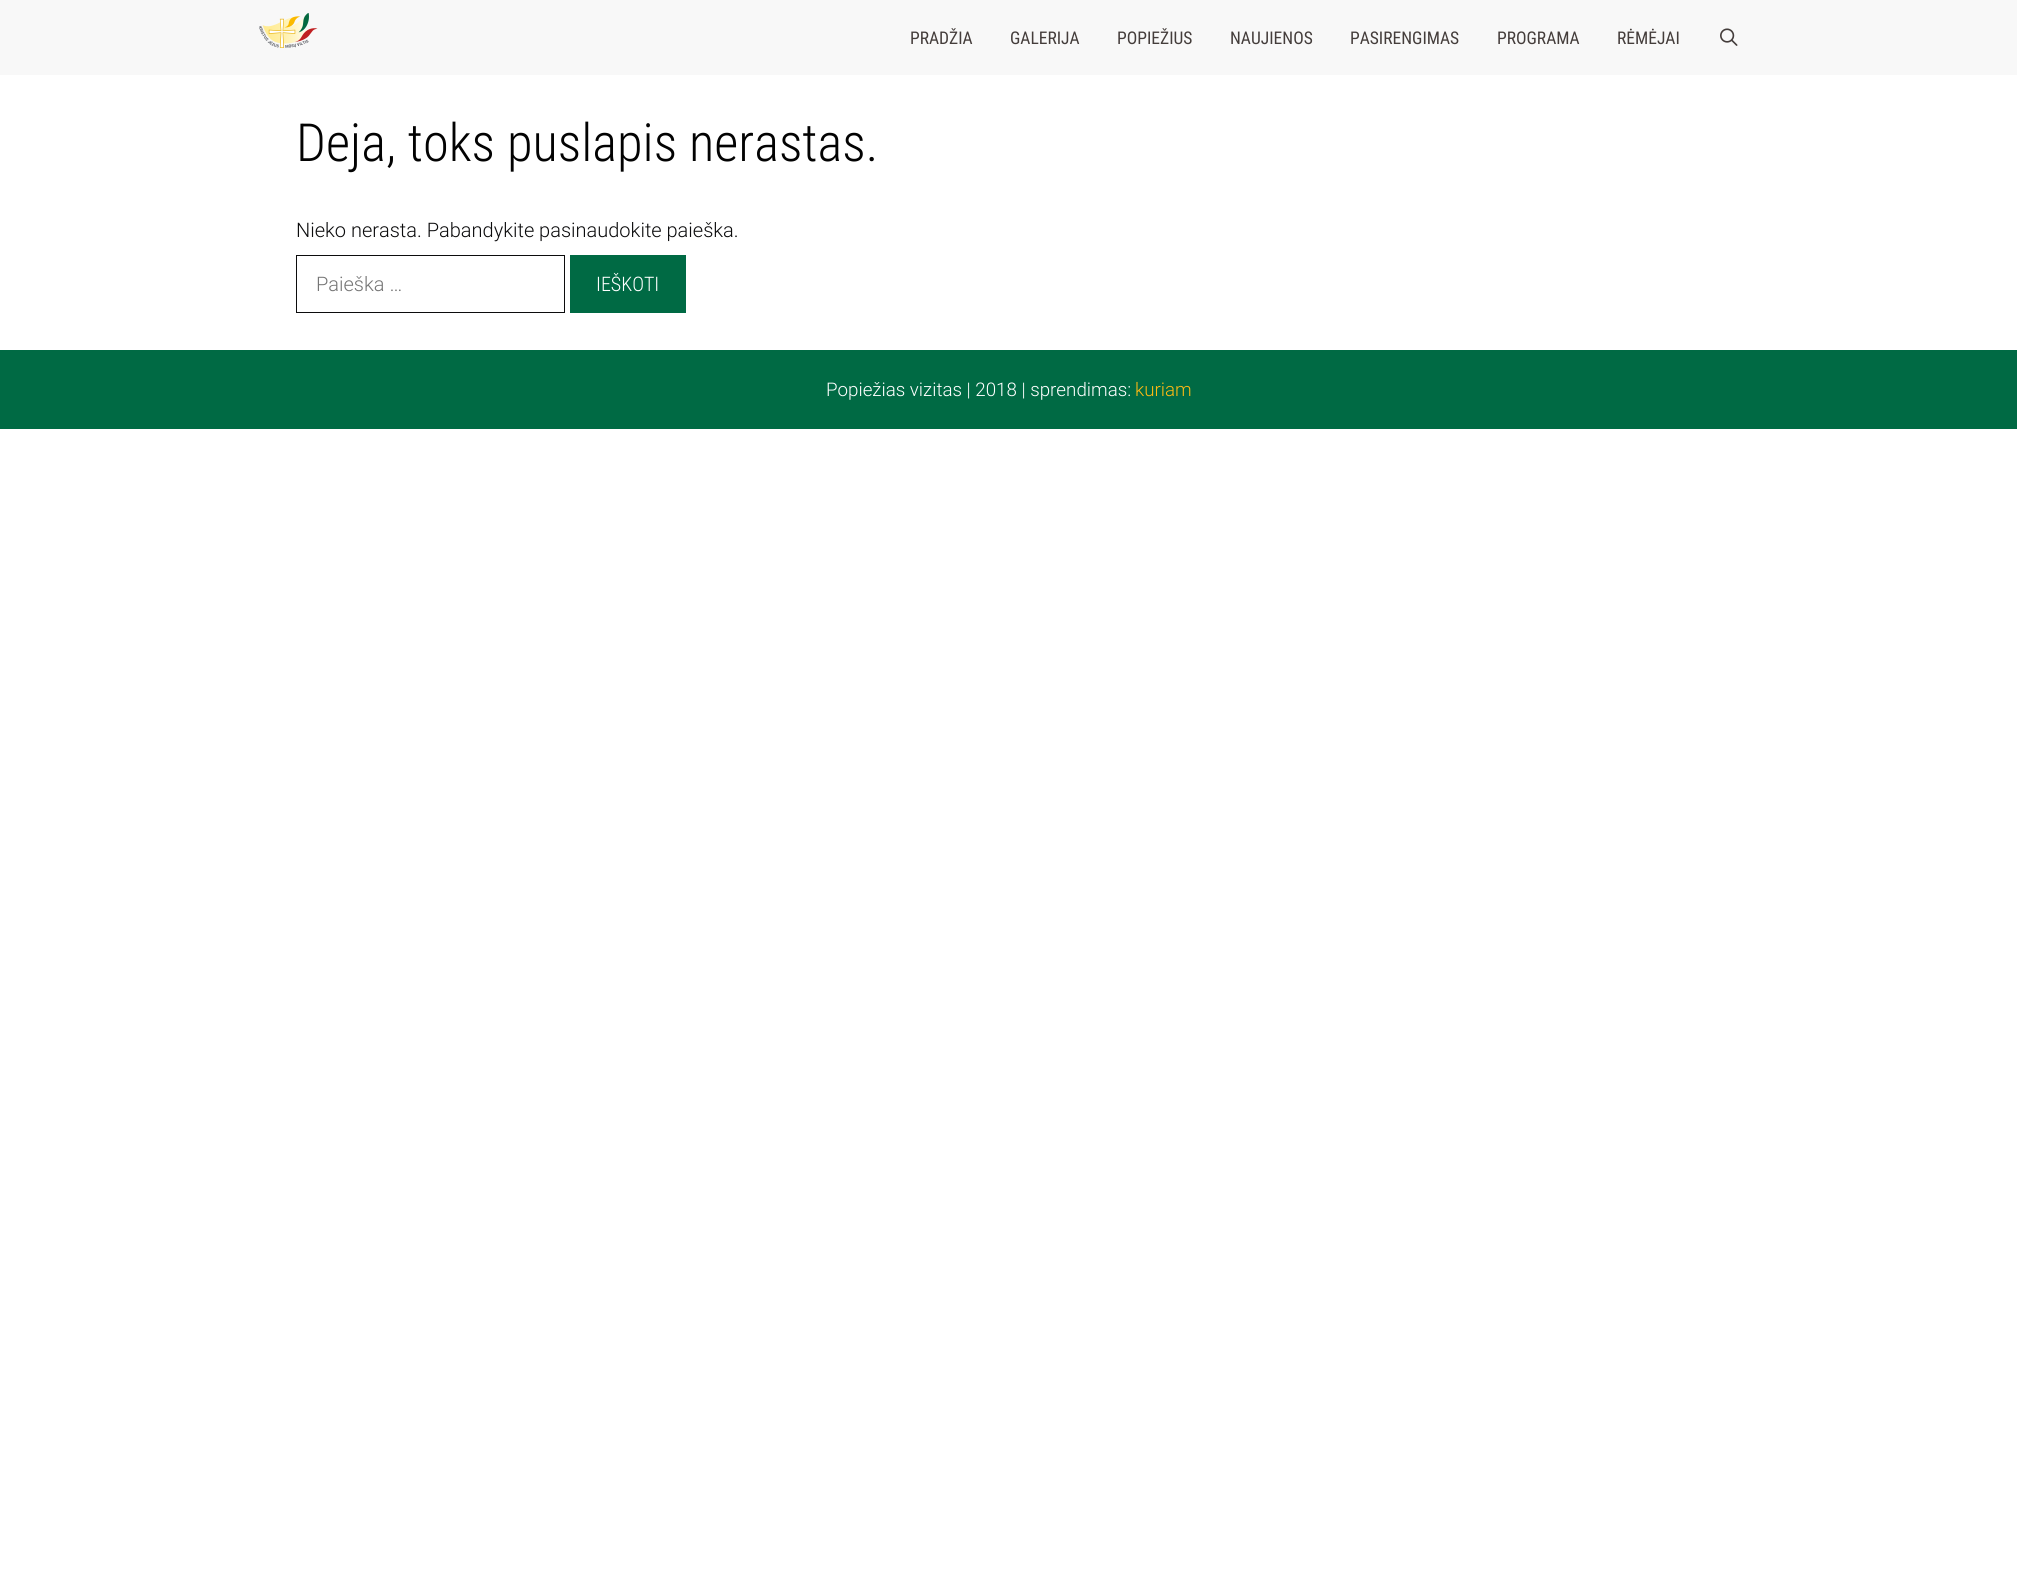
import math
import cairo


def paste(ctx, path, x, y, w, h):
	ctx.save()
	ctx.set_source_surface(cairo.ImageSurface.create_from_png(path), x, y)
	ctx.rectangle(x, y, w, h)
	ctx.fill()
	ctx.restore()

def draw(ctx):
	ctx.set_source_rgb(1, 1, 1)
	ctx.paint()
	ctx.set_source_rgb(0.969, 0.969, 0.969)
	ctx.rectangle(0, 0, 2017, 75)
	ctx.fill()
	paste(ctx, 'media/1.png', 259, 13, 59, 35)
	ctx.select_font_face('Roboto Condensed')
	ctx.set_font_size(17.5)
	ctx.set_source_rgb(0.267, 0.239, 0.231)
	for x, y, s in [
		(910, 44, 'PRADŽIA'),
		(1010, 44, 'GALERIJA'),
		(1117, 44, 'POPIEŽIUS'),
		(1230, 44, 'NAUJIENOS'),
		(1350, 44, 'PASIRENGIMAS'),
		(1497, 44, 'PROGRAMA'),
		(1617, 44, 'RĖMĖJAI'),
	]:
		ctx.move_to(x, y)
		ctx.show_text(s)
	paste(ctx, 'media/2.png', 1720, 28, 18, 18)
	ctx.select_font_face('Roboto Condensed Light')
	ctx.set_font_size(52.5)
	ctx.set_source_rgb(0.008, 0.008, 0.008)
	ctx.move_to(296, 161)
	ctx.show_text('Deja, toks puslapis nerastas.')
	ctx.select_font_face('Roboto Light')
	ctx.set_font_size(20)
	ctx.set_source_rgb(0.047, 0.047, 0.051)
	ctx.move_to(296, 237)
	ctx.show_text('Nieko nerasta. Pabandykite pasinaudokite paieška.')
	ctx.rectangle(296.5, 255.5, 268, 57)
	ctx.set_line_width(1)
	ctx.stroke()
	ctx.set_source_rgb(0.459, 0.459, 0.459)
	ctx.move_to(316, 291)
	ctx.show_text('Paieška …')
	ctx.set_source_rgb(0, 0.416, 0.267)
	ctx.rectangle(570, 255, 116, 58)
	ctx.fill()
	ctx.select_font_face('Roboto Condensed Light')
	ctx.set_source_rgb(1, 1, 1)
	ctx.move_to(596, 291)
	ctx.show_text('IEŠKOTI')
	ctx.set_source_rgb(0, 0.416, 0.267)
	ctx.rectangle(0, 350, 2017, 79)
	ctx.fill()
	ctx.select_font_face('Roboto Light')
	ctx.set_font_size(18.75)
	ctx.set_source_rgb(1, 1, 1)
	ctx.move_to(826, 396)
	ctx.show_text('Popiežias vizitas | 2018 | sprendimas:')
	ctx.set_source_rgb(0.992, 0.725, 0.075)
	ctx.move_to(1135, 396)
	ctx.show_text('kuriam')


surface = cairo.ImageSurface(cairo.FORMAT_RGB24, 2017, 1573)
ctx = cairo.Context(surface)
options = cairo.FontOptions()
options.set_hint_metrics(cairo.HINT_METRICS_OFF)
options.set_hint_style(cairo.HINT_STYLE_NONE)
ctx.set_font_options(options)
ctx.set_miter_limit(4)
draw(ctx)
surface.write_to_png('image.png')
